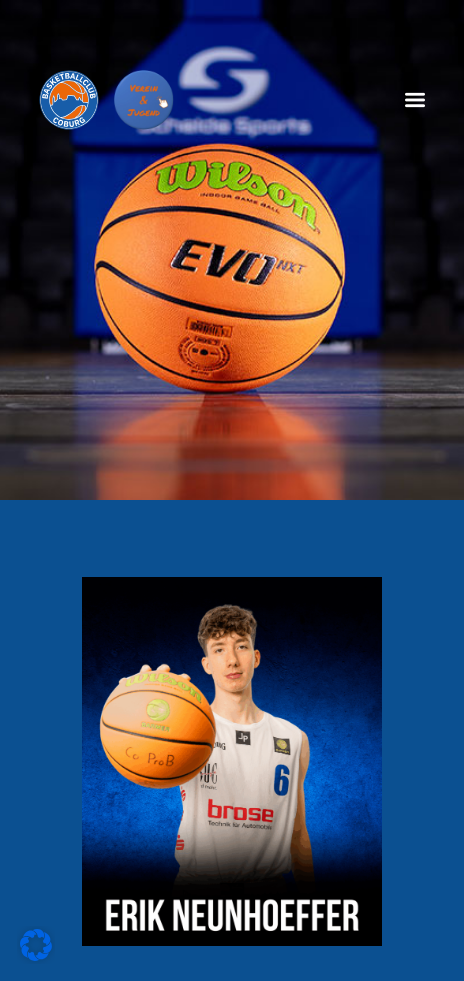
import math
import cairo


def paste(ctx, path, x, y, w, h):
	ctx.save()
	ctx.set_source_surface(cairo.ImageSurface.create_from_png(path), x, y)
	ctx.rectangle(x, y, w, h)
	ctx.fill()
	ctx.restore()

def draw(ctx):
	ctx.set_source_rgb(0.043, 0.314, 0.569)
	ctx.paint()
	paste(ctx, 'media/1.png', 0, 0, 464, 500)
	paste(ctx, 'media/2.png', 39, 70, 60, 60)
	paste(ctx, 'media/3.png', 114, 70, 60, 60)
	paste(ctx, 'media/4.png', 405, 92, 20, 16)
	paste(ctx, 'media/5.png', 82, 577, 300, 369)
	paste(ctx, 'media/6.png', 17, 926, 38, 38)


surface = cairo.ImageSurface(cairo.FORMAT_RGB24, 464, 981)
ctx = cairo.Context(surface)
options = cairo.FontOptions()
options.set_hint_metrics(cairo.HINT_METRICS_OFF)
options.set_hint_style(cairo.HINT_STYLE_NONE)
ctx.set_font_options(options)
ctx.set_miter_limit(4)
draw(ctx)
surface.write_to_png('image.png')
